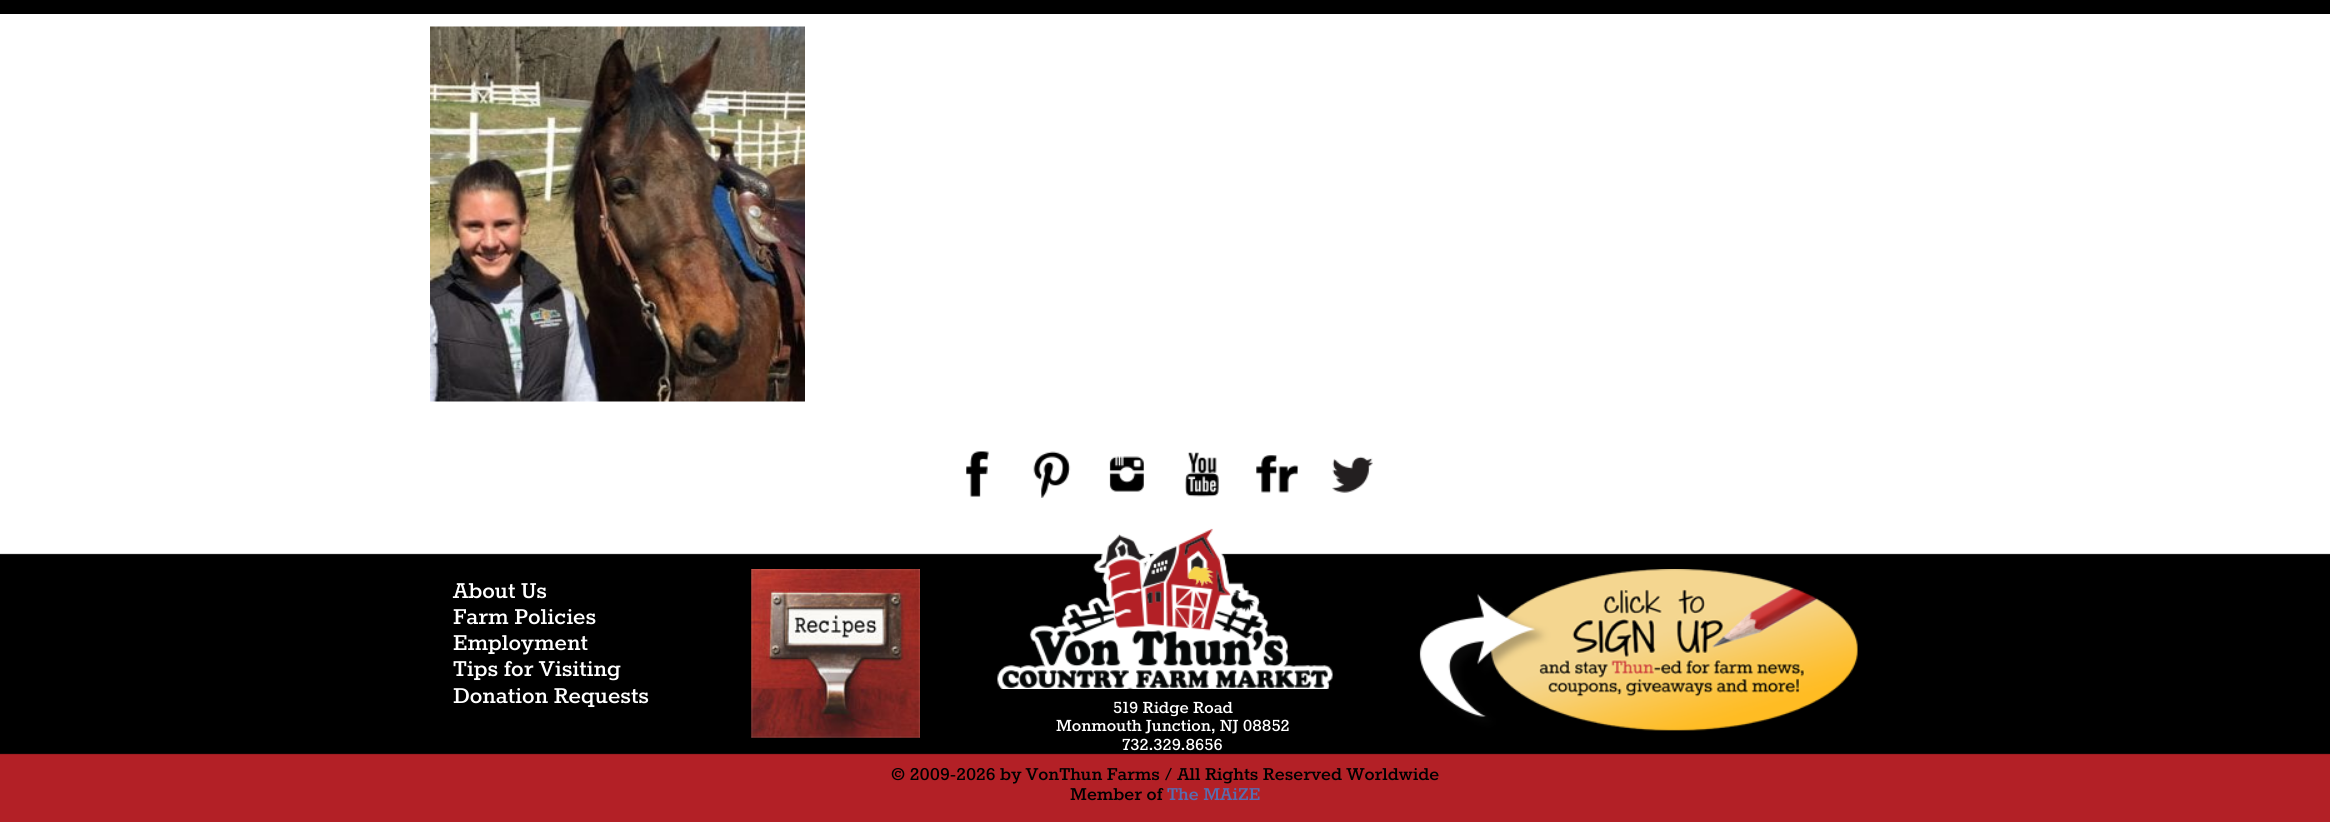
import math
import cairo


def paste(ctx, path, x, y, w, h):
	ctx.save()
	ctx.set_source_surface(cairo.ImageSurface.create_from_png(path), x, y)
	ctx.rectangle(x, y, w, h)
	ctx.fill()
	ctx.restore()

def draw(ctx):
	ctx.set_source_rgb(0.702, 0.125, 0.149)
	ctx.paint()
	ctx.set_source_rgb(0, 0, 0)
	ctx.rectangle(0, 0, 2330, 14)
	ctx.fill()
	ctx.set_source_rgb(1, 1, 1)
	ctx.rectangle(0, 14, 2330, 510)
	ctx.fill()
	paste(ctx, 'media/1.png', 430, 26, 375, 376)
	paste(ctx, 'media/2.png', 966, 451, 23, 46)
	paste(ctx, 'media/3.png', 1033, 451, 38, 47)
	paste(ctx, 'media/4.png', 1109, 456, 35, 36)
	paste(ctx, 'media/5.png', 1185, 452, 34, 45)
	paste(ctx, 'media/6.png', 1256, 455, 43, 38)
	paste(ctx, 'media/7.png', 1332, 456, 41, 37)
	paste(ctx, 'media/8.png', 0, 524, 2330, 231)
	paste(ctx, 'media/9.png', 997, 528, 336, 161)
	ctx.select_font_face('Rokkitt', cairo.FONT_SLANT_NORMAL, cairo.FONT_WEIGHT_BOLD)
	ctx.set_font_size(25)
	for x, y, s in [
		(453, 598, 'About Us'),
		(453, 624, 'Farm Policies'),
		(453, 650, 'Employment'),
		(453, 676, 'Tips for Visiting'),
		(453, 703, 'Donation Requests'),
	]:
		ctx.move_to(x, y)
		ctx.show_text(s)
	paste(ctx, 'media/10.png', 751, 569, 169, 169)
	paste(ctx, 'media/11.png', 1419, 569, 439, 162)
	ctx.set_font_size(18.75)
	for x, y, s in [
		(1113, 713, '519 Ridge Road'),
		(1056, 731, 'Monmouth Junction, NJ 08852'),
		(1122, 750, '732.329.8656'),
	]:
		ctx.move_to(x, y)
		ctx.show_text(s)
	ctx.set_font_size(20)
	ctx.set_source_rgb(0, 0, 0)
	ctx.move_to(891, 780)
	ctx.show_text('© 2009-2026 by VonThun Farms / All Rights Reserved Worldwide')
	ctx.move_to(1070, 800)
	ctx.show_text('Member of')
	ctx.set_source_rgb(0.341, 0.427, 0.694)
	ctx.move_to(1167, 800)
	ctx.show_text('The MAiZE')


surface = cairo.ImageSurface(cairo.FORMAT_RGB24, 2330, 822)
ctx = cairo.Context(surface)
options = cairo.FontOptions()
options.set_hint_metrics(cairo.HINT_METRICS_OFF)
options.set_hint_style(cairo.HINT_STYLE_NONE)
ctx.set_font_options(options)
ctx.set_miter_limit(4)
draw(ctx)
surface.write_to_png('image.png')
